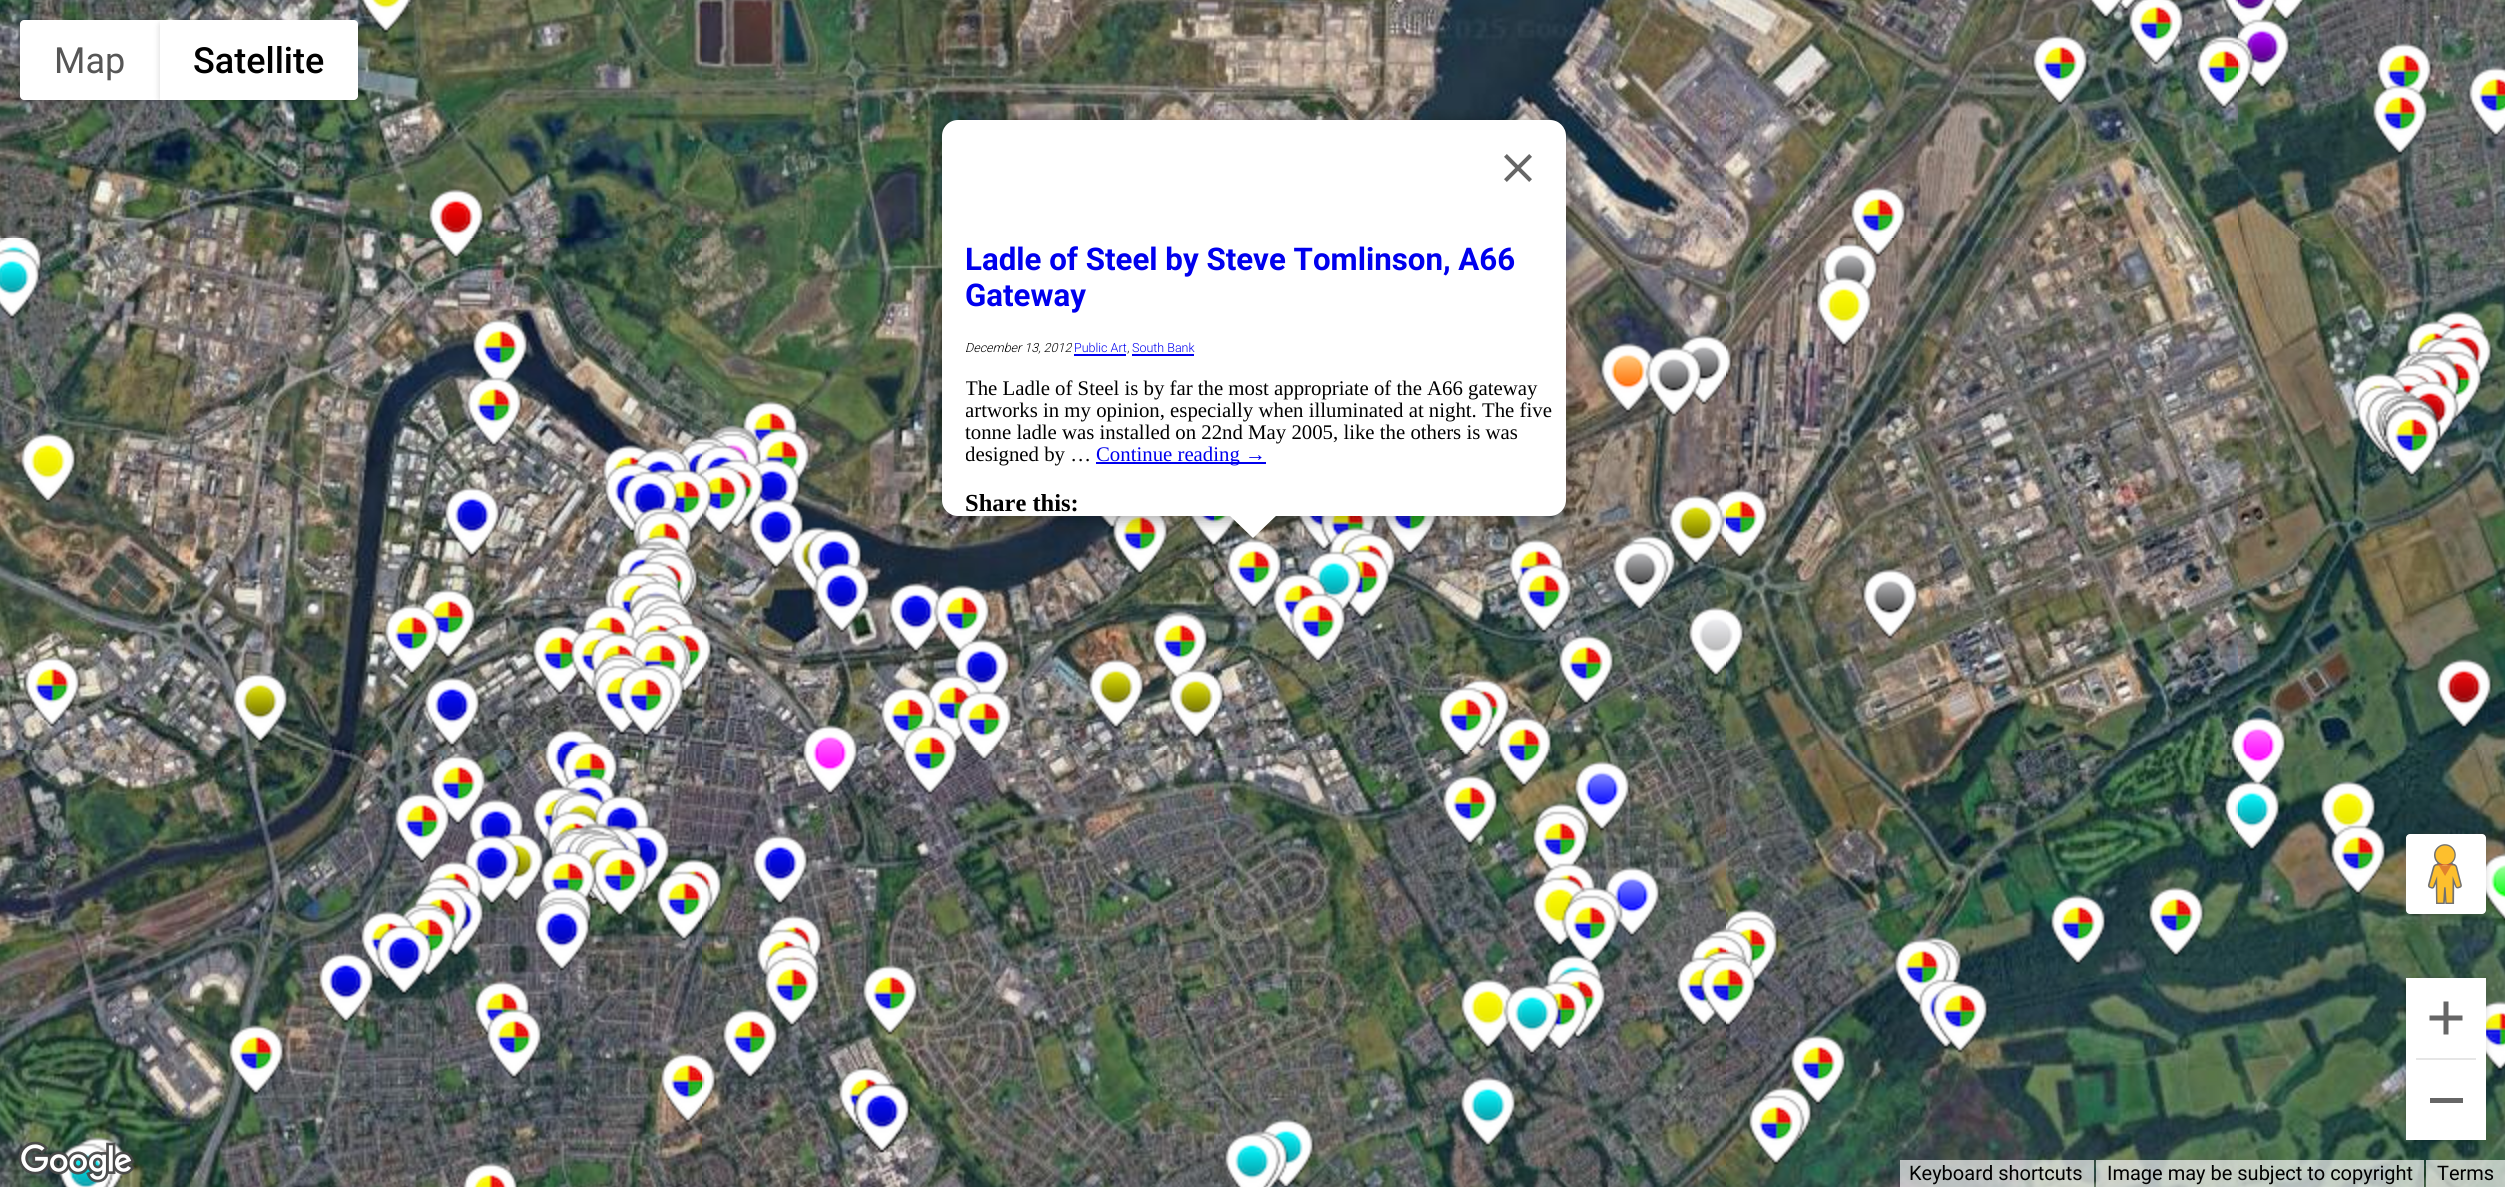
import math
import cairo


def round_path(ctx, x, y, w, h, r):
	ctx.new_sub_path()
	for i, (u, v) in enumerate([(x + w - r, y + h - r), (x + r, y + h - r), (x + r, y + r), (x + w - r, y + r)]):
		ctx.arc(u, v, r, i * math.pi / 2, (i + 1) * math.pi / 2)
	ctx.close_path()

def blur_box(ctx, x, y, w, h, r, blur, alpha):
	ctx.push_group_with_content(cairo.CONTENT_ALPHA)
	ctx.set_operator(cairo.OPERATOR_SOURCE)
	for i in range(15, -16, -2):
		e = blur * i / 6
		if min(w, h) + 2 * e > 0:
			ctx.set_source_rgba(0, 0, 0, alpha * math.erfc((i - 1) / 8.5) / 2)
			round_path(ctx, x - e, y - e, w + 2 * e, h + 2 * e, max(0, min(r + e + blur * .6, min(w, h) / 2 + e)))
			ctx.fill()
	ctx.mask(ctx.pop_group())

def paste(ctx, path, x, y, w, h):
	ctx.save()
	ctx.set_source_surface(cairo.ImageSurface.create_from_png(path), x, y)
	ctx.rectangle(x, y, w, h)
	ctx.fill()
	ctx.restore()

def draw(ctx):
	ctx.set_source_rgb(1, 1, 1)
	ctx.paint()
	paste(ctx, 'media/1.png', 0, 0, 190, 238)
	ctx.set_source_rgb(0, 0, 0)
	blur_box(ctx, 22, 24, 136, 76, 2, 4, 0.3)
	ctx.set_source_rgb(1, 1, 1)
	ctx.new_path()
	ctx.move_to(24, 20)
	ctx.line_to(160, 20)
	ctx.line_to(160, 100)
	ctx.line_to(24, 100)
	ctx.curve_to(22, 100, 20, 98, 20, 96)
	ctx.line_to(20, 24)
	ctx.curve_to(20, 22, 22, 20, 24, 20)
	ctx.close_path()
	ctx.fill()
	ctx.select_font_face('Roboto')
	ctx.set_font_size(36)
	ctx.set_source_rgb(0.337, 0.337, 0.337)
	ctx.move_to(54, 73)
	ctx.show_text('Map')
	paste(ctx, 'media/2.png', 190, 0, 512, 238)
	paste(ctx, 'media/19.png', 360, 0, 125, 238)
	ctx.set_source_rgb(0, 0, 0)
	blur_box(ctx, 162, 24, 194, 76, 2, 4, 0.3)
	ctx.set_source_rgb(1, 1, 1)
	ctx.new_path()
	ctx.move_to(160, 20)
	ctx.line_to(354, 20)
	ctx.curve_to(356, 20, 358, 22, 358, 24)
	ctx.line_to(358, 96)
	ctx.curve_to(358, 98, 356, 100, 354, 100)
	ctx.line_to(160, 100)
	ctx.close_path()
	ctx.fill()
	ctx.select_font_face('Roboto Medium')
	ctx.set_source_rgb(0, 0, 0)
	ctx.move_to(193, 73)
	ctx.show_text('Satellite')
	paste(ctx, 'media/3.png', 702, 0, 512, 238)
	paste(ctx, 'media/4.png', 1214, 0, 512, 238)
	paste(ctx, 'media/5.png', 1726, 0, 512, 238)
	paste(ctx, 'media/6.png', 2238, 0, 267, 238)
	paste(ctx, 'media/7.png', 0, 238, 190, 512)
	paste(ctx, 'media/8.png', 190, 238, 512, 512)
	paste(ctx, 'media/9.png', 702, 238, 512, 512)
	paste(ctx, 'media/10.png', 1214, 238, 512, 512)
	paste(ctx, 'media/11.png', 1726, 238, 512, 512)
	paste(ctx, 'media/12.png', 2238, 238, 267, 512)
	paste(ctx, 'media/13.png', 0, 750, 190, 437)
	paste(ctx, 'media/14.png', 190, 750, 512, 437)
	paste(ctx, 'media/15.png', 702, 750, 512, 437)
	paste(ctx, 'media/16.png', 1214, 750, 512, 437)
	paste(ctx, 'media/17.png', 1726, 750, 512, 437)
	paste(ctx, 'media/18.png', 2238, 750, 267, 437)
	paste(ctx, 'media/20.png', 1849, 0, 389, 238)
	paste(ctx, 'media/21.png', 2238, 0, 267, 155)
	paste(ctx, 'media/22.png', 0, 235, 25, 3)
	paste(ctx, 'media/23.png', 0, 238, 81, 489)
	paste(ctx, 'media/24.png', 231, 238, 471, 512)
	paste(ctx, 'media/25.png', 702, 401, 512, 349)
	paste(ctx, 'media/26.png', 1214, 335, 512, 415)
	paste(ctx, 'media/27.png', 1726, 238, 512, 512)
	paste(ctx, 'media/28.png', 2238, 311, 255, 439)
	paste(ctx, 'media/29.png', 227, 750, 475, 437)
	paste(ctx, 'media/30.png', 702, 750, 293, 405)
	paste(ctx, 'media/31.png', 1223, 750, 503, 437)
	paste(ctx, 'media/32.png', 1726, 750, 512, 415)
	paste(ctx, 'media/33.png', 2238, 750, 267, 321)
	paste(ctx, 'media/34.png', 58, 1137, 69, 50)
	ctx.set_source_rgb(0, 0, 0)
	blur_box(ctx, 940, 122, 628, 400, 18, 7, 0.3)
	ctx.set_source_rgb(1, 1, 1)
	round_path(ctx, 942, 120, 624, 396, 16)
	ctx.fill()
	paste(ctx, 'media/35.png', 1504, 154, 28, 28)
	ctx.select_font_face('Roboto', cairo.FONT_SLANT_NORMAL, cairo.FONT_WEIGHT_BOLD)
	ctx.set_font_size(31.25)
	ctx.set_source_rgb(0, 0, 0.933)
	ctx.move_to(965, 270)
	ctx.show_text('Ladle of Steel by Steve Tomlinson, A66')
	ctx.move_to(965, 306)
	ctx.show_text('Gateway')
	ctx.select_font_face('Roboto Light', cairo.FONT_SLANT_ITALIC)
	ctx.set_font_size(12.5)
	ctx.set_source_rgb(0, 0, 0)
	ctx.move_to(965, 352)
	ctx.show_text('December 13, 2012')
	ctx.select_font_face('Roboto Light')
	ctx.set_source_rgb(0, 0, 0.933)
	ctx.move_to(1074, 352)
	ctx.show_text('Public Art')
	ctx.rectangle(1074, 354, 52, 2)
	ctx.fill()
	ctx.set_source_rgb(0, 0, 0)
	ctx.move_to(1127, 352)
	ctx.show_text(',')
	ctx.set_source_rgb(0, 0, 0.933)
	ctx.move_to(1132, 352)
	ctx.show_text('South Bank')
	ctx.rectangle(1132, 354, 62, 2)
	ctx.fill()
	ctx.save()
	ctx.rectangle(966, 216, 600, 300)
	ctx.clip()
	ctx.select_font_face('Liberation Serif')
	ctx.set_font_size(20.8)
	ctx.set_source_rgb(0, 0, 0)
	ctx.move_to(965, 395)
	ctx.show_text('The Ladle of Steel is by far the most appropriate of the A66 gateway')
	ctx.move_to(965, 417)
	ctx.show_text('artworks in my opinion, especially when illuminated at night. The five')
	ctx.restore()
	ctx.select_font_face('Liberation Serif')
	ctx.set_font_size(20.8)
	ctx.set_source_rgb(0, 0, 0)
	ctx.move_to(965, 439)
	ctx.show_text('tonne ladle was installed on 22nd May 2005, like the others is was')
	ctx.save()
	ctx.rectangle(966, 216, 600, 300)
	ctx.clip()
	ctx.move_to(965, 461)
	ctx.show_text('designed by …')
	ctx.restore()
	ctx.set_source_rgb(0, 0, 0.933)
	ctx.rectangle(1096, 462, 170, 2)
	ctx.fill()
	ctx.move_to(1096, 461)
	ctx.show_text('Continue reading →')
	ctx.select_font_face('Liberation Serif', cairo.FONT_SLANT_NORMAL, cairo.FONT_WEIGHT_BOLD)
	ctx.set_font_size(24.5)
	ctx.set_source_rgb(0, 0, 0)
	ctx.move_to(965, 511)
	ctx.show_text('Share this:')
	ctx.set_source_rgb(1, 1, 1)
	ctx.new_path()
	ctx.move_to(1230, 514)
	ctx.line_to(1230, 516)
	ctx.line_to(1253, 538)
	ctx.line_to(1278, 514)
	ctx.close_path()
	ctx.fill()
	ctx.set_source_rgb(0, 0, 0)
	blur_box(ctx, 2408, 838, 76, 76, 2, 4, 0.3)
	ctx.set_source_rgb(1, 1, 1)
	round_path(ctx, 2406, 834, 80, 80, 4)
	ctx.fill()
	paste(ctx, 'media/36.png', 2427, 844, 35, 60)
	ctx.set_source_rgb(0, 0, 0)
	blur_box(ctx, 2408, 982, 76, 158, 2, 4, 0.3)
	ctx.set_source_rgb(1, 1, 1)
	ctx.rectangle(2406, 978, 80, 162)
	ctx.fill()
	ctx.set_source_rgb(0.4, 0.4, 0.4)
	ctx.new_path()
	ctx.move_to(2443.5, 1020.5)
	ctx.line_to(2429.5, 1020.5)
	ctx.line_to(2429.5, 1015.5)
	ctx.line_to(2443.5, 1015.5)
	ctx.line_to(2443.5, 1001.5)
	ctx.line_to(2448.5, 1001.5)
	ctx.line_to(2448.5, 1015.5)
	ctx.line_to(2462.5, 1015.5)
	ctx.line_to(2462.5, 1020.5)
	ctx.line_to(2448.5, 1020.5)
	ctx.line_to(2448.5, 1034.5)
	ctx.line_to(2443.5, 1034.5)
	ctx.close_path()
	ctx.fill()
	ctx.set_source_rgb(0.902, 0.902, 0.902)
	ctx.rectangle(2416, 1058, 60, 2)
	ctx.fill()
	ctx.set_source_rgb(0.4, 0.4, 0.4)
	ctx.rectangle(2430, 1098, 33, 5)
	ctx.fill()
	paste(ctx, 'media/37.png', 18, 1141, 117, 42)
	ctx.set_source_rgba(0.961, 0.961, 0.961, 0.7)
	ctx.rectangle(1900, 1160, 194, 27)
	ctx.fill()
	ctx.select_font_face('Roboto')
	ctx.set_font_size(20)
	ctx.set_source_rgb(0, 0, 0)
	ctx.move_to(1909, 1180)
	ctx.show_text('Keyboard shortcuts')
	ctx.set_source_rgba(0.961, 0.961, 0.961, 0.7)
	ctx.rectangle(2096, 1160, 328, 27)
	ctx.fill()
	ctx.set_source_rgb(0, 0, 0)
	ctx.move_to(2107, 1180)
	ctx.show_text('Image may be subject to copyright')
	ctx.set_source_rgba(0.961, 0.961, 0.961, 0.7)
	ctx.rectangle(2426, 1160, 79, 27)
	ctx.fill()
	ctx.set_source_rgb(0, 0, 0)
	ctx.move_to(2437, 1180)
	ctx.show_text('Terms')


surface = cairo.ImageSurface(cairo.FORMAT_RGB24, 2505, 1187)
ctx = cairo.Context(surface)
options = cairo.FontOptions()
options.set_hint_metrics(cairo.HINT_METRICS_OFF)
options.set_hint_style(cairo.HINT_STYLE_NONE)
ctx.set_font_options(options)
ctx.set_miter_limit(4)
draw(ctx)
surface.write_to_png('image.png')
